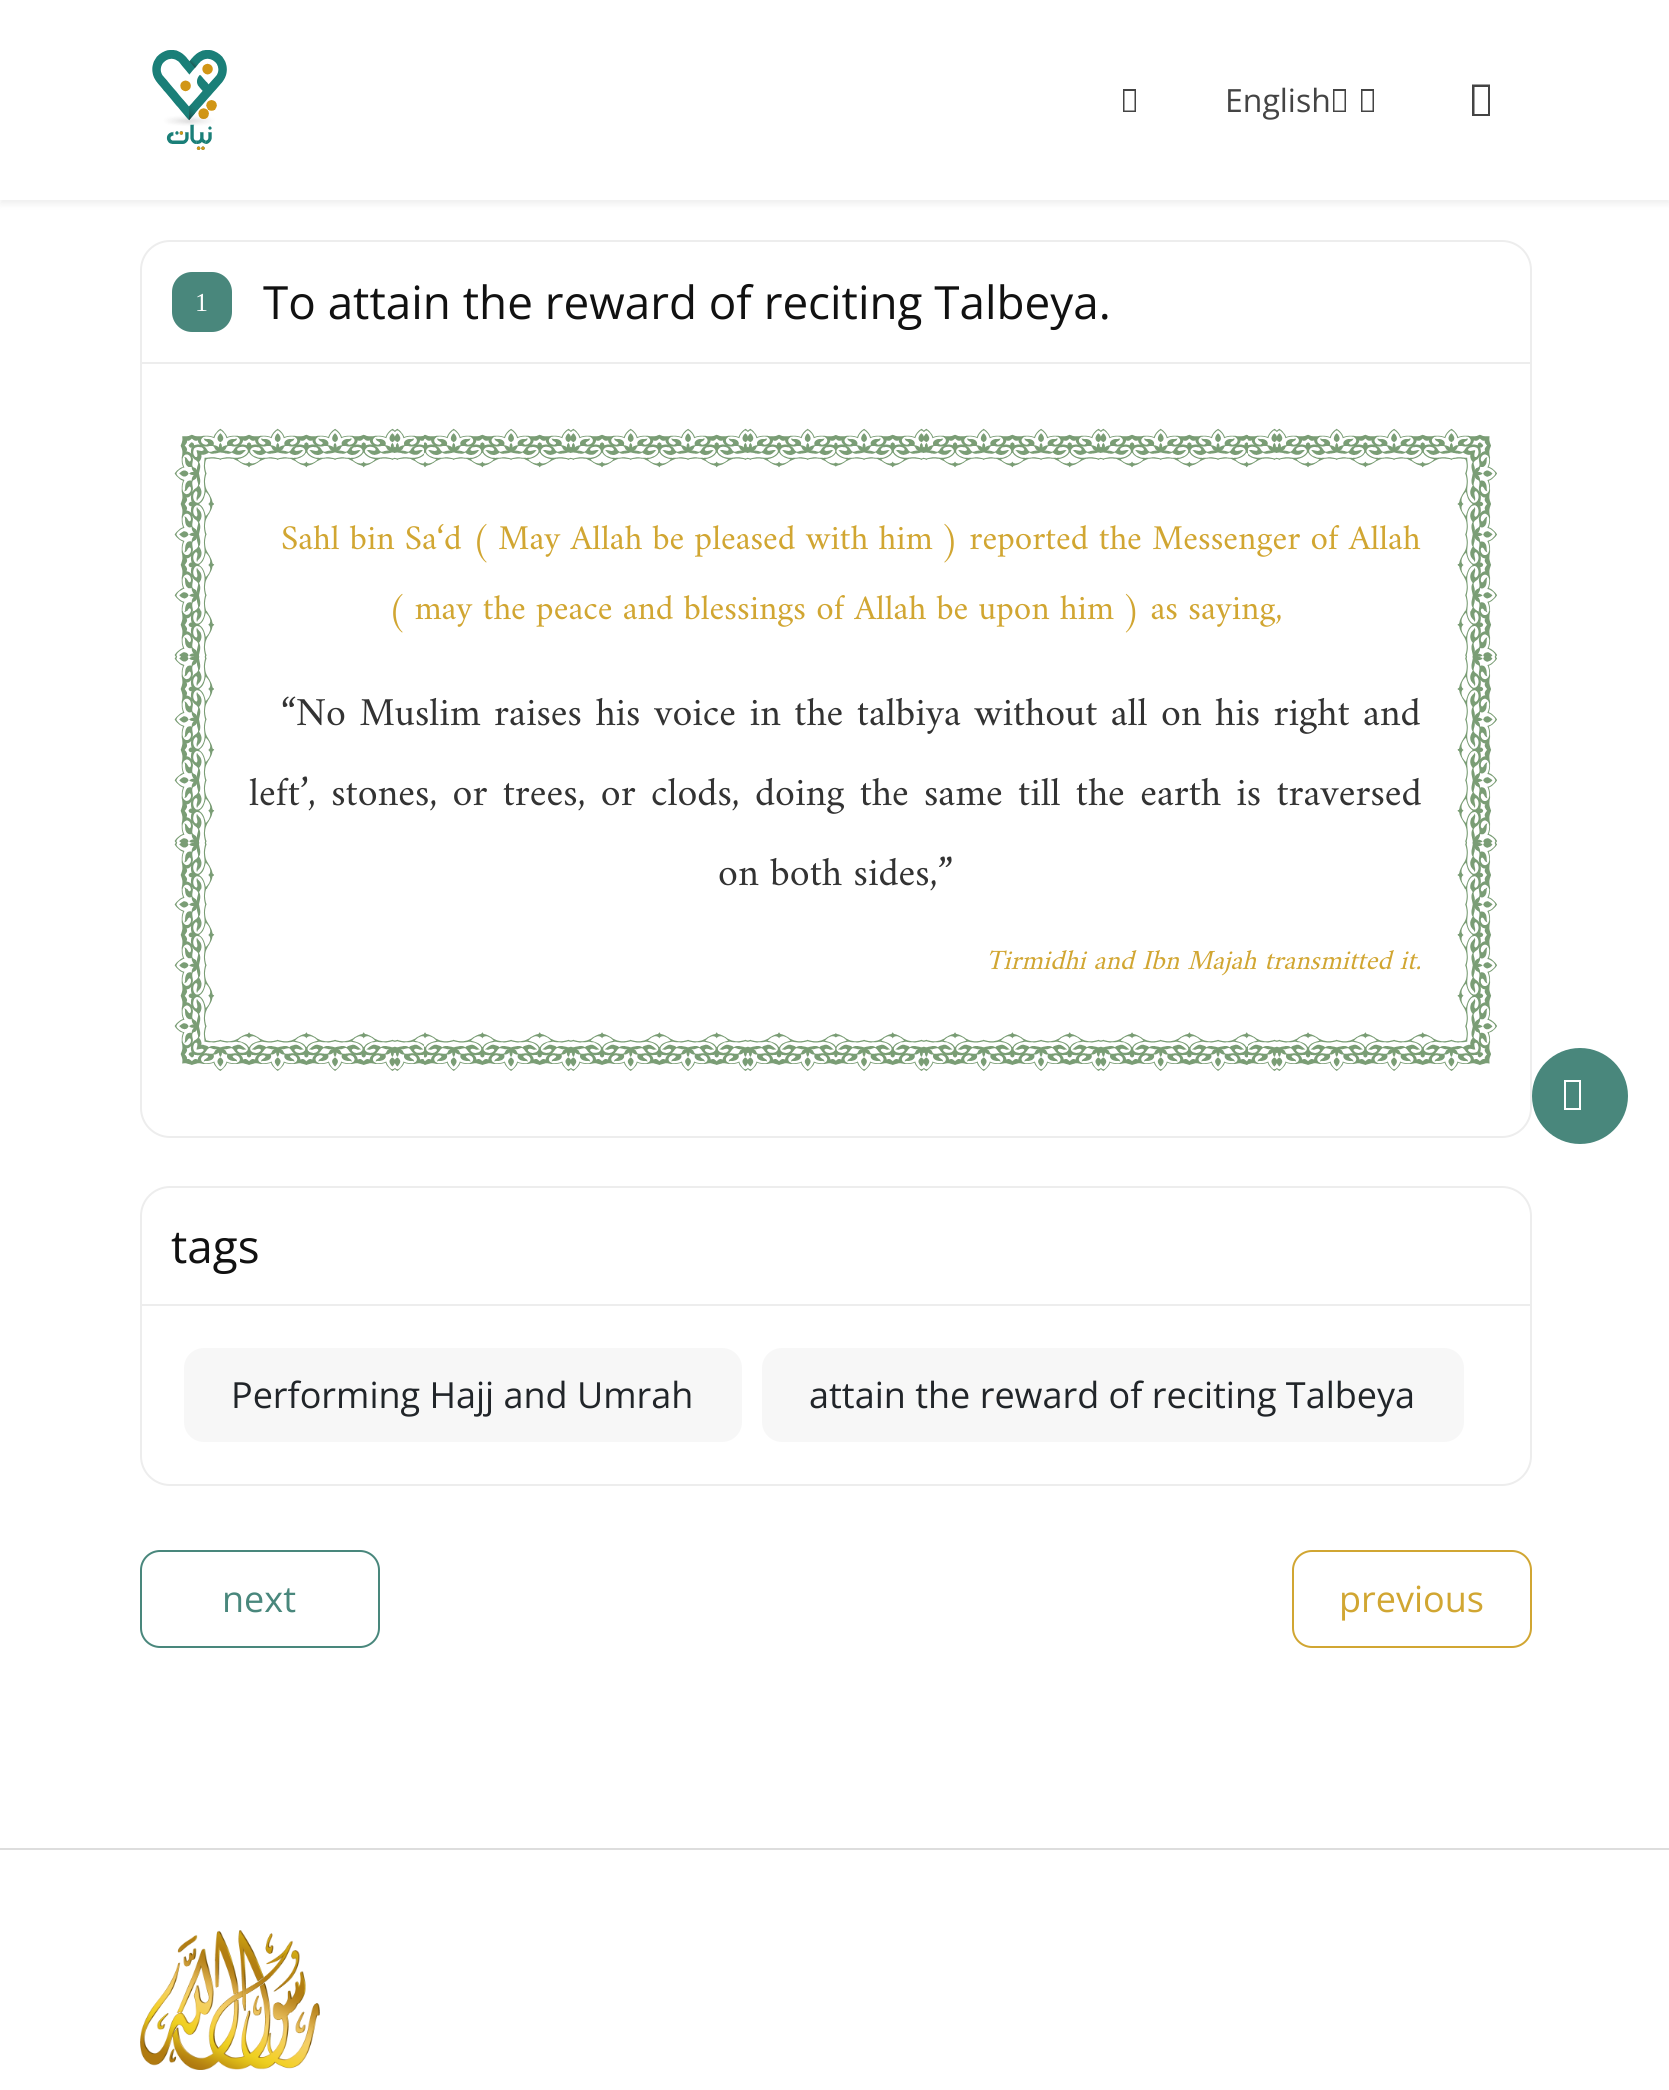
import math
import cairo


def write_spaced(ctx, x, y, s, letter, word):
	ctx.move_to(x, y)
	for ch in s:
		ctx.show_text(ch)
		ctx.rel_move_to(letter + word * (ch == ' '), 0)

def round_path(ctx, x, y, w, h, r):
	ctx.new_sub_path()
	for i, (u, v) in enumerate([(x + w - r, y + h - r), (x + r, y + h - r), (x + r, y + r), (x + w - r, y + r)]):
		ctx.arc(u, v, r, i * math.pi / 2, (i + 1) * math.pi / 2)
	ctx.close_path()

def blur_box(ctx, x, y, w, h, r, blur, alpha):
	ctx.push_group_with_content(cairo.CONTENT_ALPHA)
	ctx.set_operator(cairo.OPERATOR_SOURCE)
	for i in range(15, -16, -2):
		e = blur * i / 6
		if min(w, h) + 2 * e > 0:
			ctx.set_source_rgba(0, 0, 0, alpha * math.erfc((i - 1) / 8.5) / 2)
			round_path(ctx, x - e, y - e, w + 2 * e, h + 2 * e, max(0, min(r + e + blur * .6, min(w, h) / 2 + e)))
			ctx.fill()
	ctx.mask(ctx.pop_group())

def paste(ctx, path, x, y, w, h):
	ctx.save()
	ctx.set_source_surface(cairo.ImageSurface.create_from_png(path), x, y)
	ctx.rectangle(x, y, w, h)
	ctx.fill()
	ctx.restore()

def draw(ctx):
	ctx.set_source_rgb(1, 1, 1)
	ctx.paint()
	ctx.set_source_rgb(0, 0, 0)
	blur_box(ctx, 0, 4, 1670, 200, 0, 4, 0.07)
	ctx.set_source_rgb(1, 1, 1)
	ctx.rectangle(0, 0, 1669, 200)
	ctx.fill()
	paste(ctx, 'media/1.png', 152, 50, 75, 100)
	ctx.set_source_rgb(0.267, 0.267, 0.267)
	ctx.new_path()
	ctx.move_to(1123, 112)
	ctx.line_to(1123, 89)
	ctx.line_to(1136, 89)
	ctx.line_to(1136, 112)
	ctx.close_path()
	ctx.move_to(1124.5, 110.5)
	ctx.line_to(1134.5, 110.5)
	ctx.line_to(1134.5, 91)
	ctx.line_to(1124.5, 91)
	ctx.close_path()
	ctx.fill()
	ctx.select_font_face('Open Sans')
	ctx.set_font_size(32)
	ctx.move_to(1225, 112)
	ctx.show_text('English')
	ctx.new_path()
	ctx.move_to(1333, 112)
	ctx.line_to(1333, 89)
	ctx.line_to(1346, 89)
	ctx.line_to(1346, 112)
	ctx.close_path()
	ctx.move_to(1334.5, 110.5)
	ctx.line_to(1344.5, 110.5)
	ctx.line_to(1344.5, 91)
	ctx.line_to(1334.5, 91)
	ctx.close_path()
	ctx.move_to(1361, 112)
	ctx.line_to(1361, 89)
	ctx.line_to(1374, 89)
	ctx.line_to(1374, 112)
	ctx.close_path()
	ctx.move_to(1362.5, 110.5)
	ctx.line_to(1372.5, 110.5)
	ctx.line_to(1372.5, 91)
	ctx.line_to(1362.5, 91)
	ctx.close_path()
	ctx.fill()
	ctx.new_path()
	ctx.move_to(1472, 116)
	ctx.line_to(1472, 84.5)
	ctx.line_to(1490, 84.5)
	ctx.line_to(1490, 116)
	ctx.close_path()
	ctx.move_to(1474.5, 114)
	ctx.line_to(1488, 114)
	ctx.line_to(1488, 87)
	ctx.line_to(1474.5, 87)
	ctx.close_path()
	ctx.fill()
	round_path(ctx, 141, 241, 1390, 896, 29)
	ctx.set_source_rgb(0.929, 0.929, 0.929)
	ctx.stroke()
	ctx.rectangle(142, 362, 1388, 2)
	ctx.fill()
	ctx.set_source_rgb(0.286, 0.529, 0.486)
	round_path(ctx, 172, 272, 60, 60, 20)
	ctx.fill()
	ctx.select_font_face('Liberation Serif')
	ctx.set_font_size(26)
	ctx.set_source_rgb(1, 1, 1)
	ctx.move_to(195, 311)
	ctx.show_text('1')
	ctx.select_font_face('Open Sans')
	ctx.set_font_size(45.8)
	ctx.set_source_rgb(0.067, 0.067, 0.067)
	ctx.move_to(263, 319)
	ctx.show_text('To attain the reward of reciting Talbeya.')
	paste(ctx, 'media/2.png', 174, 428, 1323, 643)
	ctx.select_font_face('Amiri')
	ctx.set_font_size(35.2)
	ctx.set_source_rgb(0.82, 0.651, 0.196)
	ctx.move_to(281, 549)
	ctx.show_text('Sahl bin Sa‘d ( May Allah be pleased with him ) reported the Messenger of Allah')
	ctx.move_to(388, 619)
	ctx.show_text('( may the peace and blessings of Allah be upon him ) as saying,')
	ctx.set_font_size(40)
	ctx.set_source_rgb(0.2, 0.2, 0.2)
	write_spaced(ctx, 281, 725, '“No Muslim raises his voice in the talbiya without all on his right and', 0, 1.8)
	write_spaced(ctx, 249, 805, 'left’, stones, or trees, or clods, doing the same till the earth is traversed', 0, 3.6)
	ctx.move_to(718, 885)
	ctx.show_text('on both sides,”')
	ctx.select_font_face('Amiri', cairo.FONT_SLANT_ITALIC)
	ctx.set_font_size(28)
	ctx.set_source_rgb(0.82, 0.651, 0.196)
	ctx.move_to(986, 969)
	ctx.show_text('Tirmidhi and Ibn Majah transmitted it.')
	round_path(ctx, 141, 1187, 1390, 298, 29)
	ctx.set_source_rgb(0.929, 0.929, 0.929)
	ctx.stroke()
	ctx.rectangle(142, 1304, 1388, 2)
	ctx.fill()
	ctx.select_font_face('Open Sans')
	ctx.set_font_size(45.8)
	ctx.set_source_rgb(0.067, 0.067, 0.067)
	ctx.move_to(171, 1263)
	ctx.show_text('tags')
	ctx.set_source_rgb(0.965, 0.965, 0.965)
	round_path(ctx, 184, 1348, 558, 94, 20)
	ctx.fill()
	ctx.set_font_size(36)
	ctx.set_source_rgb(0.129, 0.145, 0.161)
	ctx.move_to(231, 1408)
	ctx.show_text('Performing Hajj and Umrah')
	ctx.set_source_rgb(0.965, 0.965, 0.965)
	round_path(ctx, 762, 1348, 702, 94, 20)
	ctx.fill()
	ctx.set_source_rgb(0.129, 0.145, 0.161)
	ctx.move_to(809, 1408)
	ctx.show_text('attain the reward of reciting Talbeya')
	round_path(ctx, 141, 1551, 238, 96, 19)
	ctx.set_source_rgb(0.286, 0.529, 0.486)
	ctx.stroke()
	ctx.move_to(222, 1612)
	ctx.show_text('next')
	round_path(ctx, 1293, 1551, 238, 96, 19)
	ctx.set_source_rgb(0.82, 0.651, 0.196)
	ctx.stroke()
	ctx.move_to(1339, 1612)
	ctx.show_text('previous')
	ctx.set_source_rgb(0.286, 0.529, 0.486)
	ctx.new_path()
	ctx.arc(1580, 1096, 48, 0, 2 * math.pi)
	ctx.fill()
	ctx.set_source_rgb(1, 1, 1)
	ctx.new_path()
	ctx.move_to(1564, 1110)
	ctx.line_to(1564, 1080)
	ctx.line_to(1581, 1080)
	ctx.line_to(1581, 1110)
	ctx.close_path()
	ctx.move_to(1566, 1108)
	ctx.line_to(1579, 1108)
	ctx.line_to(1579, 1082)
	ctx.line_to(1566, 1082)
	ctx.close_path()
	ctx.fill()
	ctx.set_source_rgb(0.867, 0.867, 0.867)
	ctx.rectangle(0, 1848, 1669, 2)
	ctx.fill()
	paste(ctx, 'media/3.png', 140, 1930, 180, 140)


surface = cairo.ImageSurface(cairo.FORMAT_RGB24, 1669, 2090)
ctx = cairo.Context(surface)
options = cairo.FontOptions()
options.set_hint_metrics(cairo.HINT_METRICS_OFF)
options.set_hint_style(cairo.HINT_STYLE_NONE)
ctx.set_font_options(options)
ctx.set_miter_limit(4)
draw(ctx)
surface.write_to_png('image.png')
